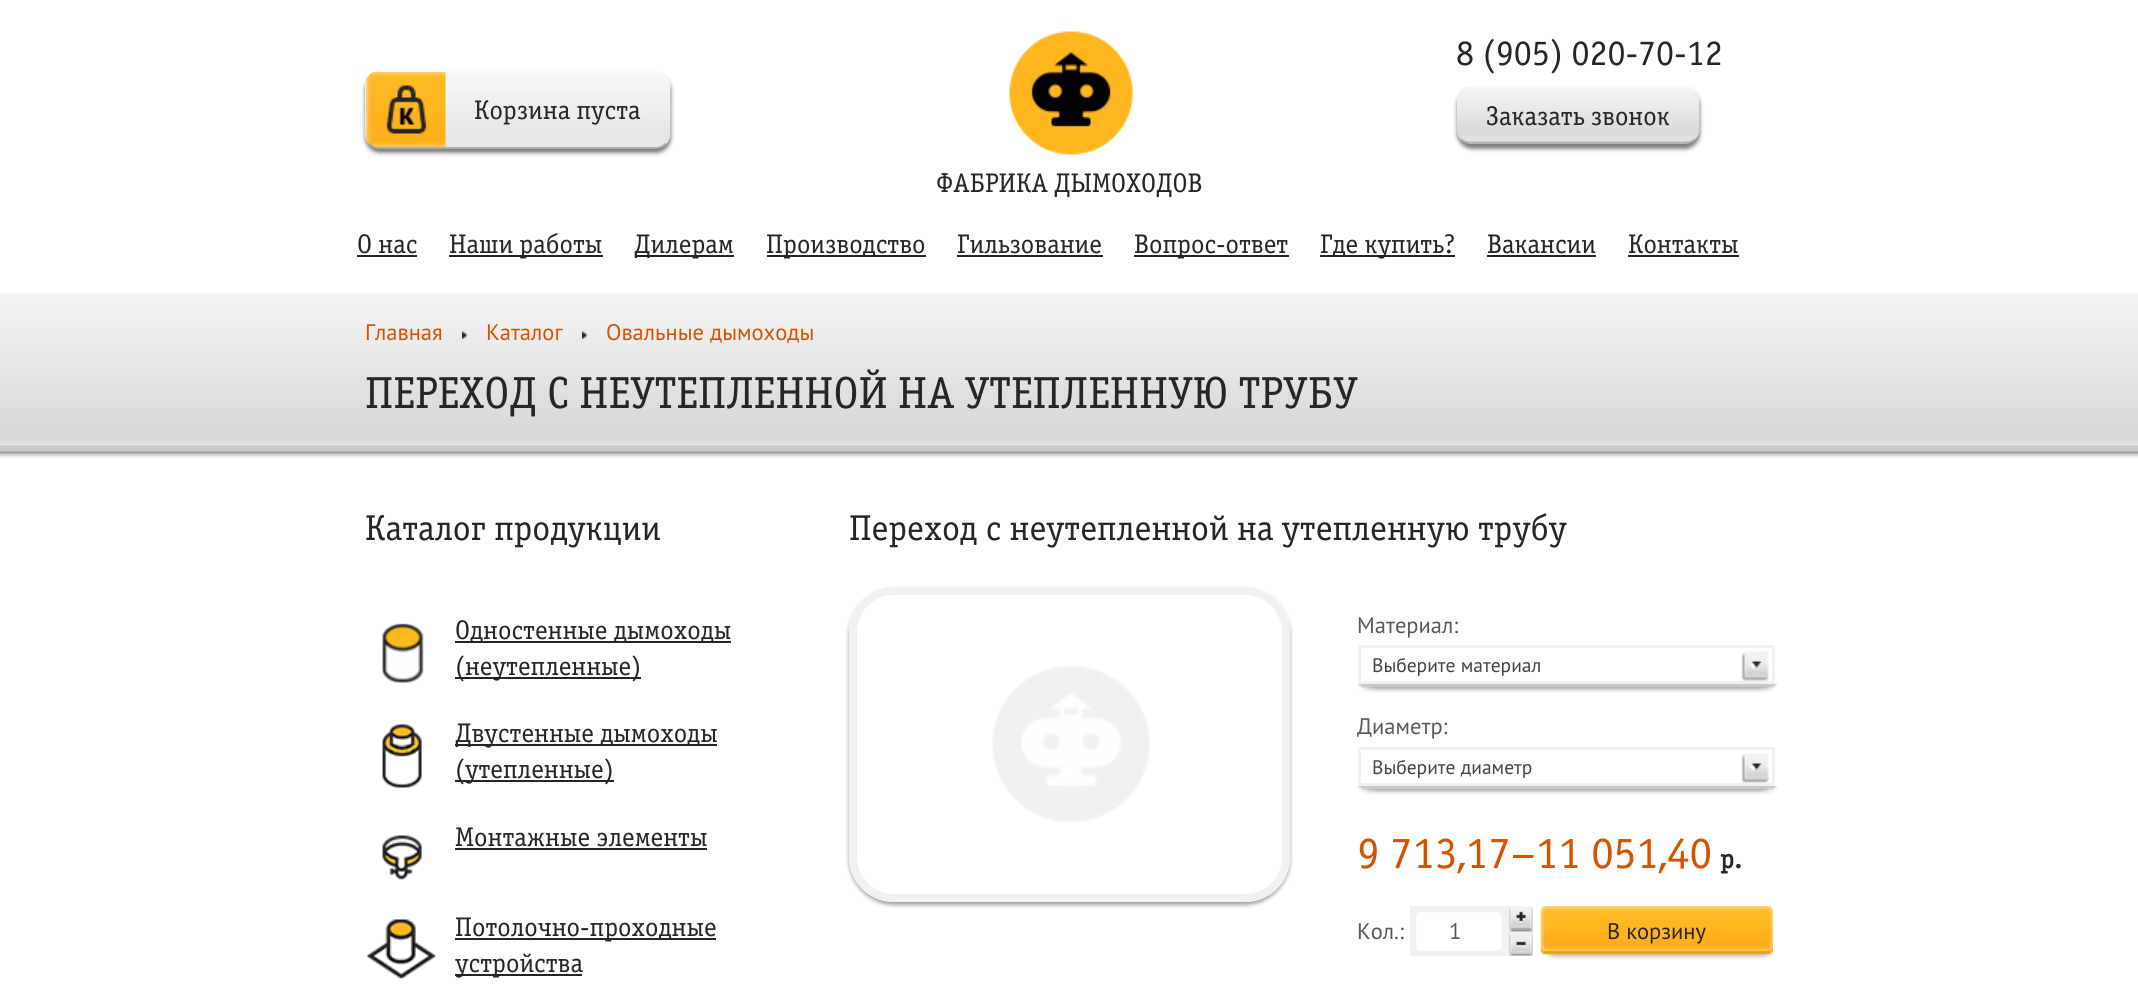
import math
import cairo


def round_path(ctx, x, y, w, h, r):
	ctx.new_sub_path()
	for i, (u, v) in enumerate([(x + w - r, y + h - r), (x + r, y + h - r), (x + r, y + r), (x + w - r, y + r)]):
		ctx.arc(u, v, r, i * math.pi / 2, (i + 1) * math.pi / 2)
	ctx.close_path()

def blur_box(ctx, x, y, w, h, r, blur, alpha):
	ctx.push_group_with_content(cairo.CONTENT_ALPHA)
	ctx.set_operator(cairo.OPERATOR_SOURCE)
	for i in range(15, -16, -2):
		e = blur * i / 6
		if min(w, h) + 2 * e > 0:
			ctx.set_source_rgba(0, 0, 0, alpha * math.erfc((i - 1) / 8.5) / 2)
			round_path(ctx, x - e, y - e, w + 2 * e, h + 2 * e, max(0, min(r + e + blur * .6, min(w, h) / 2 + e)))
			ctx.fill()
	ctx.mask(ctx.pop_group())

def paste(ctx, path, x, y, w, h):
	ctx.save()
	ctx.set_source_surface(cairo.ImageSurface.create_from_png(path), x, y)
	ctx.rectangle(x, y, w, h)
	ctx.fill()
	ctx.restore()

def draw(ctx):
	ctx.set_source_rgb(1, 1, 1)
	ctx.paint()
	ctx.set_source_rgb(0, 0, 0)
	blur_box(ctx, 365, 75, 306, 78, 15, 2, 0.5)
	paste(ctx, 'media/1.png', 365, 72, 306, 77)
	ctx.new_path()
	ctx.move_to(665.5, 143.5)
	ctx.curve_to(663, 146, 659.5, 148, 655.5, 148)
	ctx.line_to(379.5, 148)
	ctx.curve_to(375.5, 148, 372, 146, 369.5, 143.5)
	ctx.set_source_rgb(0.686, 0.686, 0.686)
	ctx.set_line_width(1.5)
	ctx.stroke()
	ctx.select_font_face('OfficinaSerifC')
	ctx.set_font_size(27)
	ctx.set_source_rgb(0.149, 0.149, 0.149)
	ctx.move_to(474, 119)
	ctx.show_text('Корзина пуста')
	ctx.set_font_size(36)
	ctx.move_to(1456, 65)
	ctx.show_text('8 (905) 020-70-12')
	ctx.set_source_rgb(0, 0, 0)
	blur_box(ctx, 1457, 90, 243, 59, 15, 2, 0.5)
	paste(ctx, 'media/2.png', 1457, 87, 243, 57)
	ctx.new_path()
	ctx.move_to(1694.5, 139)
	ctx.curve_to(1692, 141.5, 1688.5, 143, 1684.5, 143)
	ctx.line_to(1471.5, 143)
	ctx.curve_to(1467.5, 143, 1464, 141.5, 1461.5, 139)
	ctx.set_source_rgb(0.686, 0.686, 0.686)
	ctx.stroke()
	ctx.set_font_size(27)
	ctx.set_source_rgb(0.149, 0.149, 0.149)
	ctx.move_to(1486, 125)
	ctx.show_text('Заказать звонок')
	paste(ctx, 'media/3.png', 1009, 31, 124, 124)
	ctx.move_to(936, 192)
	ctx.show_text('ФАБРИКА ДЫМОХОДОВ')
	ctx.move_to(357, 253)
	ctx.show_text('О нас')
	ctx.rectangle(357, 255, 60, 2)
	ctx.fill()
	ctx.rectangle(449, 255, 154, 2)
	ctx.fill()
	ctx.move_to(449, 253)
	ctx.show_text('Наши работы')
	ctx.rectangle(635, 255, 99, 2)
	ctx.fill()
	ctx.move_to(634, 253)
	ctx.show_text('Дилерам')
	ctx.rectangle(767, 255, 159, 2)
	ctx.fill()
	ctx.move_to(766, 253)
	ctx.show_text('Производство')
	ctx.move_to(957, 253)
	ctx.show_text('Гильзование')
	ctx.rectangle(957, 255, 146, 2)
	ctx.fill()
	ctx.rectangle(1134, 255, 155, 2)
	ctx.fill()
	ctx.move_to(1134, 253)
	ctx.show_text('Вопрос-ответ')
	ctx.rectangle(1320, 255, 135, 2)
	ctx.fill()
	ctx.move_to(1320, 253)
	ctx.show_text('Где купить?')
	ctx.move_to(1487, 253)
	ctx.show_text('Вакансии')
	ctx.rectangle(1487, 255, 109, 2)
	ctx.fill()
	ctx.move_to(1628, 253)
	ctx.show_text('Контакты')
	ctx.rectangle(1628, 255, 111, 2)
	ctx.fill()
	ctx.set_source_rgb(0.969, 0.969, 0.969)
	ctx.rectangle(0, 451, 2138, 8)
	ctx.fill()
	paste(ctx, 'media/4.png', 0, 292, 2138, 165)
	ctx.select_font_face('PT Sans')
	ctx.set_font_size(22.5)
	ctx.set_source_rgb(0.827, 0.329, 0)
	ctx.move_to(365, 340)
	ctx.show_text('Главная')
	paste(ctx, 'media/5.png', 462, 331, 5, 8)
	ctx.move_to(486, 340)
	ctx.show_text('Каталог')
	paste(ctx, 'media/5.png', 582, 331, 5, 8)
	ctx.move_to(606, 340)
	ctx.show_text('Овальные дымоходы')
	ctx.select_font_face('OfficinaSerifC')
	ctx.set_font_size(45)
	ctx.set_source_rgb(0.149, 0.149, 0.149)
	ctx.move_to(365, 408)
	ctx.show_text('ПЕРЕХОД С НЕУТЕПЛЕННОЙ НА УТЕПЛЕННУЮ ТРУБУ')
	ctx.set_font_size(36)
	ctx.move_to(365, 540)
	ctx.show_text('Каталог продукции')
	paste(ctx, 'media/6.png', 382, 623, 42, 60)
	ctx.rectangle(455, 641, 276, 2)
	ctx.fill()
	ctx.set_font_size(27)
	ctx.move_to(455, 639)
	ctx.show_text('Одностенные дымоходы')
	ctx.rectangle(455, 677, 186, 2)
	ctx.fill()
	ctx.move_to(455, 675)
	ctx.show_text('(неутепленные)')
	paste(ctx, 'media/7.png', 382, 724, 40, 64)
	ctx.rectangle(455, 744, 262, 2)
	ctx.fill()
	ctx.move_to(455, 742)
	ctx.show_text('Двустенные дымоходы')
	ctx.rectangle(455, 780, 159, 2)
	ctx.fill()
	ctx.move_to(455, 778)
	ctx.show_text('(утепленные)')
	paste(ctx, 'media/8.png', 382, 835, 40, 45)
	ctx.move_to(455, 846)
	ctx.show_text('Монтажные элементы')
	ctx.rectangle(455, 848, 252, 2)
	ctx.fill()
	paste(ctx, 'media/9.png', 367, 919, 69, 60)
	ctx.rectangle(455, 938, 261, 2)
	ctx.fill()
	ctx.move_to(455, 936)
	ctx.show_text('Потолочно-проходные')
	ctx.rectangle(455, 974, 127, 2)
	ctx.fill()
	ctx.move_to(455, 972)
	ctx.show_text('устройства')
	ctx.set_font_size(36)
	ctx.move_to(849, 540)
	ctx.show_text('Переход с неутепленной на утепленную трубу')
	ctx.save()
	ctx.set_fill_rule(cairo.FILL_RULE_EVEN_ODD)
	ctx.new_path()
	ctx.move_to(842, 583)
	ctx.line_to(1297, 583)
	ctx.line_to(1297, 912)
	ctx.line_to(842, 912)
	ctx.close_path()
	ctx.move_to(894, 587)
	ctx.line_to(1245, 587)
	ctx.curve_to(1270, 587, 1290, 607, 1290, 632)
	ctx.line_to(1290, 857)
	ctx.curve_to(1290, 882, 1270, 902, 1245, 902)
	ctx.line_to(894, 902)
	ctx.curve_to(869, 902, 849, 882, 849, 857)
	ctx.line_to(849, 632)
	ctx.curve_to(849, 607, 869, 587, 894, 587)
	ctx.close_path()
	ctx.clip()
	ctx.set_source_rgb(0.149, 0.149, 0.149)
	blur_box(ctx, 849, 590, 441, 315, 45, 2, 0.45)
	ctx.restore()
	round_path(ctx, 853, 591, 433, 307, 41)
	ctx.set_source_rgb(0.945, 0.945, 0.945)
	ctx.set_line_width(8)
	ctx.stroke()
	paste(ctx, 'media/10.png', 992, 665, 158, 158)
	ctx.select_font_face('PT Sans')
	ctx.set_font_size(22.5)
	ctx.set_source_rgb(0.349, 0.349, 0.349)
	ctx.move_to(1357, 633)
	ctx.show_text('Материал:')
	ctx.rectangle(1359.5, 646.5, 414, 36)
	ctx.set_source_rgb(0.945, 0.945, 0.945)
	ctx.set_line_width(3)
	ctx.stroke()
	ctx.set_font_size(19.5)
	ctx.set_source_rgb(0.267, 0.267, 0.267)
	ctx.move_to(1372, 672)
	ctx.show_text('Выберите материал')
	paste(ctx, 'media/11.png', 1741, 651, 28, 30)
	paste(ctx, 'media/12.png', 1357, 684, 421, 9)
	ctx.set_font_size(22.5)
	ctx.set_source_rgb(0.349, 0.349, 0.349)
	ctx.move_to(1357, 734)
	ctx.show_text('Диаметр:')
	ctx.rectangle(1359.5, 748.5, 414, 36)
	ctx.set_source_rgb(0.945, 0.945, 0.945)
	ctx.stroke()
	ctx.set_font_size(19.5)
	ctx.set_source_rgb(0.267, 0.267, 0.267)
	ctx.move_to(1372, 774)
	ctx.show_text('Выберите диаметр')
	paste(ctx, 'media/11.png', 1741, 753, 28, 30)
	paste(ctx, 'media/12.png', 1357, 786, 421, 9)
	ctx.select_font_face('OfficinaSerifC')
	ctx.set_font_size(45)
	ctx.set_source_rgb(0.827, 0.329, 0)
	ctx.move_to(1357, 868)
	ctx.show_text('9 713,17–11 051,40')
	ctx.select_font_face('OfficinaSerifC', cairo.FONT_SLANT_NORMAL, cairo.FONT_WEIGHT_BOLD)
	ctx.set_font_size(27)
	ctx.set_source_rgb(0.149, 0.149, 0.149)
	ctx.move_to(1720, 868)
	ctx.show_text('р.')
	ctx.select_font_face('PT Sans')
	ctx.set_font_size(22.5)
	ctx.set_source_rgb(0.349, 0.349, 0.349)
	ctx.move_to(1357, 939)
	ctx.show_text('Кол.:')
	ctx.set_source_rgb(0.945, 0.945, 0.945)
	ctx.rectangle(1410, 906, 99, 50)
	ctx.fill()
	paste(ctx, 'media/13.png', 1416, 912, 86, 39)
	ctx.set_source_rgb(0.349, 0.349, 0.349)
	ctx.move_to(1449, 939)
	ctx.show_text('1')
	paste(ctx, 'media/14.png', 1509, 906, 24, 24)
	ctx.set_source_rgb(0.914, 0.914, 0.914)
	ctx.rectangle(1509, 955, 24, 1)
	ctx.fill()
	paste(ctx, 'media/15.png', 1509, 930, 24, 26)
	paste(ctx, 'media/16.png', 1540, 906, 233, 54)
	ctx.set_source_rgb(0.149, 0.149, 0.149)
	ctx.move_to(1607, 939)
	ctx.show_text('В корзину')


surface = cairo.ImageSurface(cairo.FORMAT_RGB24, 2138, 1004)
ctx = cairo.Context(surface)
options = cairo.FontOptions()
options.set_hint_metrics(cairo.HINT_METRICS_OFF)
options.set_hint_style(cairo.HINT_STYLE_NONE)
ctx.set_font_options(options)
ctx.set_miter_limit(4)
draw(ctx)
surface.write_to_png('image.png')
